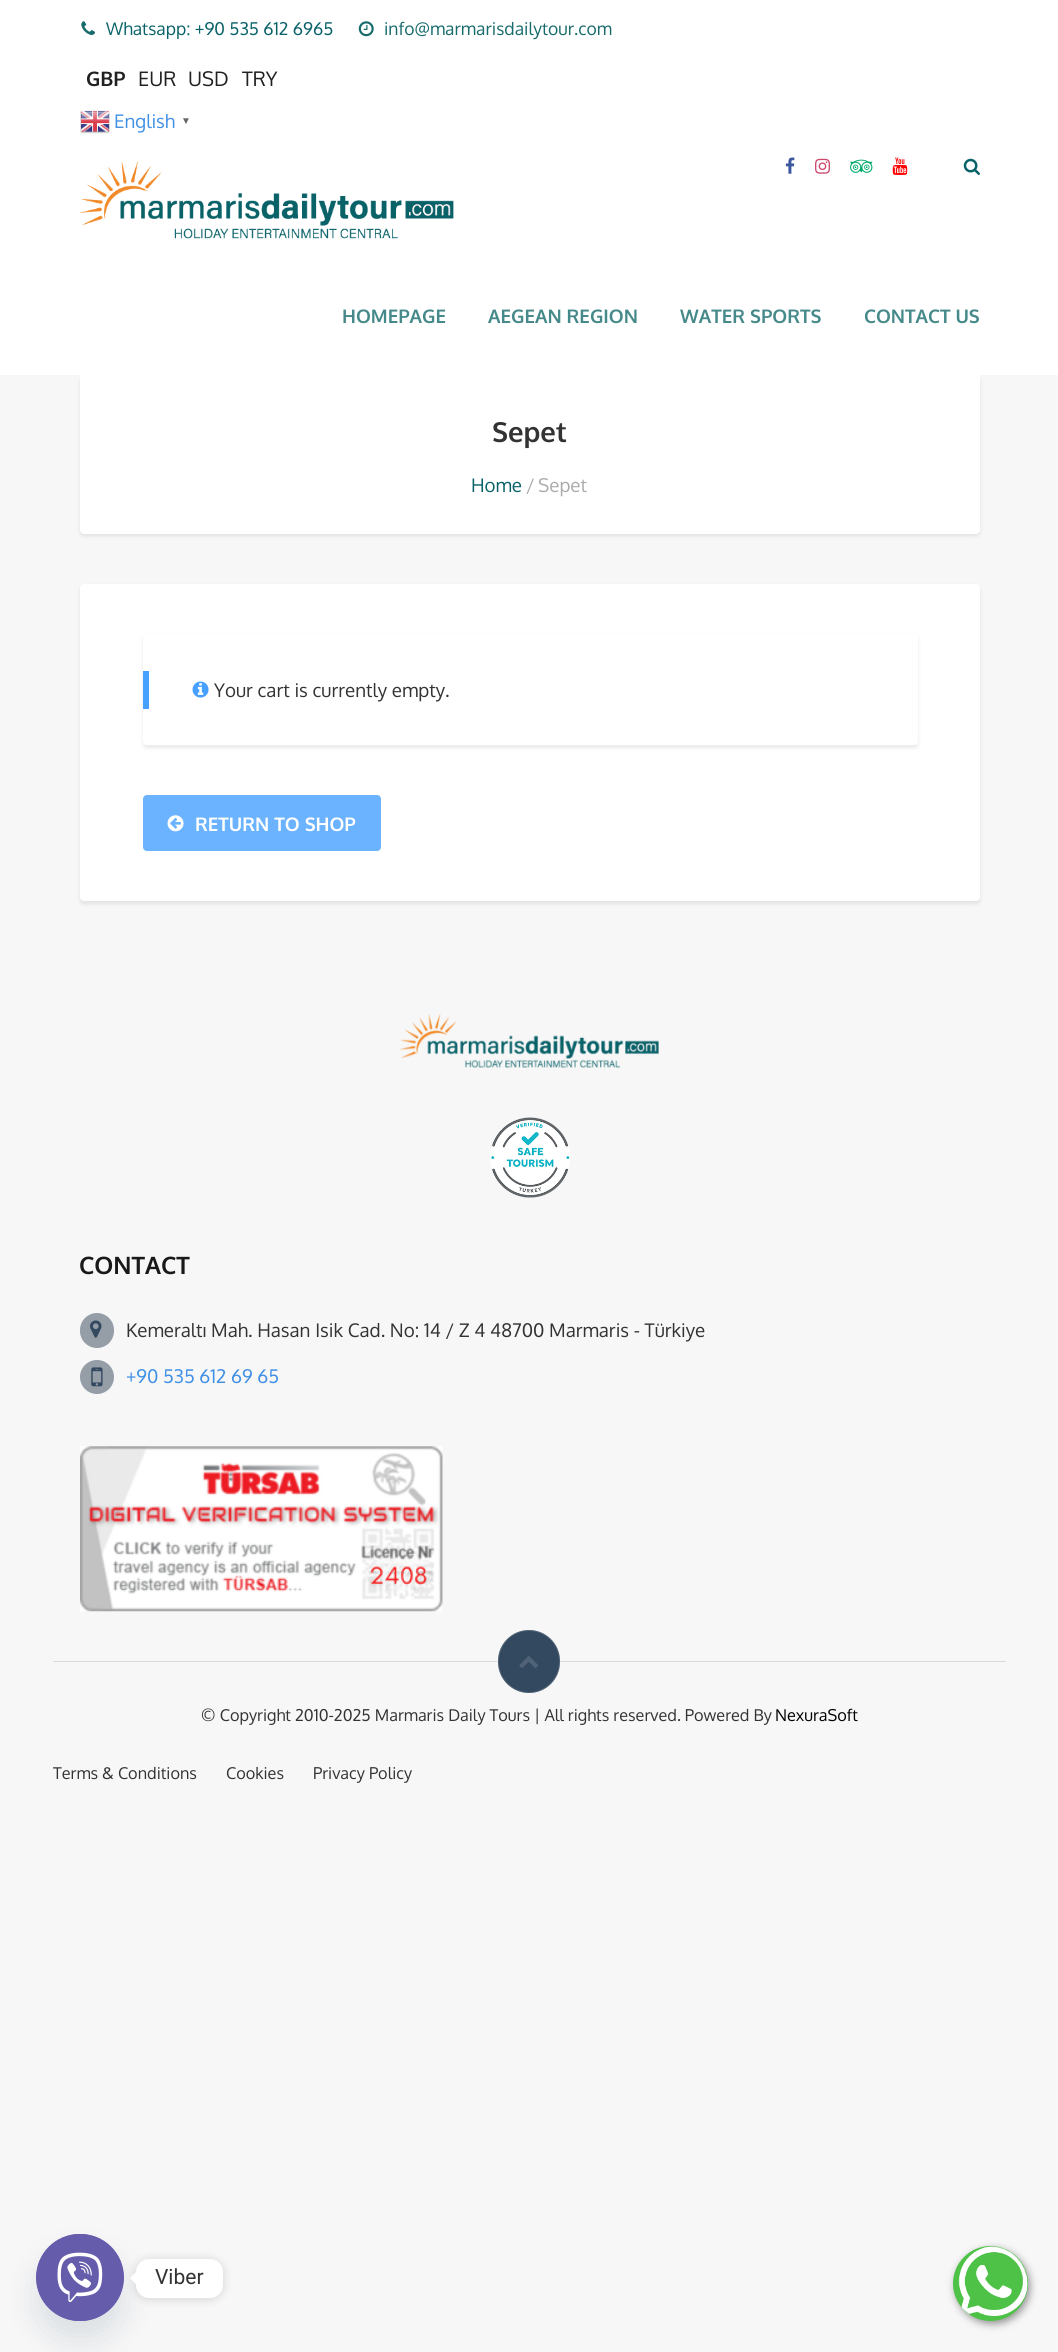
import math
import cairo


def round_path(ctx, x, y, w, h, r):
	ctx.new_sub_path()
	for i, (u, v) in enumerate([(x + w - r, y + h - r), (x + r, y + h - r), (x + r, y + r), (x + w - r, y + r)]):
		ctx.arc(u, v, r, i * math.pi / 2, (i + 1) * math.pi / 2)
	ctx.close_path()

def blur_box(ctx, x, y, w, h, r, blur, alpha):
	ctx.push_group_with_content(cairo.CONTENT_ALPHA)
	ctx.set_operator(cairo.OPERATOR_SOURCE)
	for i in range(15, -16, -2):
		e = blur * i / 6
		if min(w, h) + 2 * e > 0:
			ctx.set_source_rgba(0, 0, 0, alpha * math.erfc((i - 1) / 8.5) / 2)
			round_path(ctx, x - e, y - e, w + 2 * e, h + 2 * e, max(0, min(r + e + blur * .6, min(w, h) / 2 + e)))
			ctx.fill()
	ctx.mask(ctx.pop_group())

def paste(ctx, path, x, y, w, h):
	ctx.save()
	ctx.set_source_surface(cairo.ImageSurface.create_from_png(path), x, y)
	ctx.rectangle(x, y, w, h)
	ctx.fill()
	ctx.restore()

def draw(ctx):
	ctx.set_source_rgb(0.965, 0.965, 0.965)
	ctx.paint()
	ctx.set_source_rgb(1, 1, 1)
	ctx.rectangle(0, 0, 1058, 375)
	ctx.fill()
	paste(ctx, 'media/1.png', 81, 21, 14, 14)
	ctx.select_font_face('Oxygen')
	ctx.set_font_size(17.5)
	ctx.set_source_rgb(0.039, 0.384, 0.412)
	ctx.move_to(106, 35)
	ctx.show_text('Whatsapp: +90 535 612 6965')
	paste(ctx, 'media/2.png', 358, 21, 16, 16)
	ctx.set_source_rgb(0.094, 0.42, 0.427)
	ctx.move_to(384, 35)
	ctx.show_text('info@marmarisdailytour.com')
	ctx.select_font_face('Oxygen', cairo.FONT_SLANT_NORMAL, cairo.FONT_WEIGHT_BOLD)
	ctx.set_font_size(20)
	ctx.set_source_rgb(0.129, 0.129, 0.129)
	ctx.move_to(86, 86)
	ctx.show_text('GBP')
	ctx.select_font_face('Oxygen')
	for x, y, s in [
		(138, 86, 'EUR'),
		(188, 86, 'USD'),
		(242, 86, 'TRY'),
	]:
		ctx.move_to(x, y)
		ctx.show_text(s)
	paste(ctx, 'media/3.png', 80, 110, 30, 24)
	ctx.set_font_size(18.75)
	ctx.set_source_rgb(0.251, 0.565, 0.898)
	ctx.move_to(114, 128)
	ctx.show_text('English')
	ctx.select_font_face('Liberation Serif', cairo.FONT_SLANT_NORMAL, cairo.FONT_WEIGHT_BOLD)
	ctx.set_font_size(10)
	ctx.set_source_rgb(0.4, 0.4, 0.4)
	ctx.move_to(181, 124)
	ctx.show_text('▼')
	paste(ctx, 'media/4.png', 785, 157, 10, 17)
	paste(ctx, 'media/5.png', 815, 158, 15, 16)
	paste(ctx, 'media/6.png', 850, 159, 23, 14)
	paste(ctx, 'media/7.png', 892, 157, 16, 18)
	paste(ctx, 'media/8.png', 963, 158, 17, 17)
	paste(ctx, 'media/9.png', 80, 161, 374, 78)
	ctx.select_font_face('Oxygen', cairo.FONT_SLANT_NORMAL, cairo.FONT_WEIGHT_BOLD)
	ctx.set_font_size(18.75)
	ctx.set_source_rgb(0.275, 0.537, 0.541)
	for x, y, s in [
		(342, 323, 'HOMEPAGE'),
		(488, 323, 'AEGEAN REGION'),
		(680, 323, 'WATER SPORTS'),
		(864, 323, 'CONTACT US'),
	]:
		ctx.move_to(x, y)
		ctx.show_text(s)
	ctx.set_source_rgb(0, 0, 0)
	blur_box(ctx, 80, 378, 900, 158, 4, 2, 0.09)
	ctx.set_source_rgb(1, 1, 1)
	ctx.new_path()
	ctx.move_to(80, 375)
	ctx.line_to(980, 375)
	ctx.line_to(980, 530)
	ctx.curve_to(980, 532, 978, 534, 976, 534)
	ctx.line_to(84, 534)
	ctx.curve_to(82, 534, 80, 532, 80, 530)
	ctx.close_path()
	ctx.fill()
	ctx.set_font_size(27.5)
	ctx.set_source_rgb(0.2, 0.2, 0.2)
	ctx.move_to(492, 442)
	ctx.show_text('Sepet')
	ctx.select_font_face('Oxygen')
	ctx.set_font_size(18.75)
	ctx.set_source_rgb(0.039, 0.384, 0.412)
	ctx.move_to(471, 492)
	ctx.show_text('Home')
	ctx.set_source_rgb(0.671, 0.671, 0.671)
	ctx.move_to(526, 492)
	ctx.show_text('/')
	ctx.move_to(538, 492)
	ctx.show_text('Sepet')
	ctx.set_source_rgb(0, 0, 0)
	blur_box(ctx, 80, 586, 900, 318, 4, 2, 0.09)
	ctx.set_source_rgb(1, 1, 1)
	round_path(ctx, 80, 584, 900, 317, 4)
	ctx.fill()
	ctx.set_source_rgb(0, 0, 0)
	blur_box(ctx, 143, 636, 775, 112, 4, 2, 0.09)
	ctx.set_source_rgb(1, 1, 1)
	round_path(ctx, 143, 634, 775, 111, 4)
	ctx.fill()
	ctx.set_source_rgb(0.278, 0.627, 1)
	ctx.rectangle(143, 671, 6, 38)
	ctx.fill()
	paste(ctx, 'media/10.png', 192, 681, 17, 17)
	ctx.set_source_rgb(0.2, 0.2, 0.2)
	ctx.move_to(214, 697)
	ctx.show_text('Your cart is currently empty.')
	ctx.set_source_rgb(0.424, 0.702, 1)
	round_path(ctx, 143, 795, 238, 56, 4)
	ctx.fill()
	paste(ctx, 'media/11.png', 167, 815, 17, 17)
	ctx.select_font_face('Oxygen', cairo.FONT_SLANT_NORMAL, cairo.FONT_WEIGHT_BOLD)
	ctx.set_source_rgb(1, 1, 1)
	ctx.move_to(195, 831)
	ctx.show_text('RETURN TO SHOP')
	paste(ctx, 'media/12.png', 400, 1014, 259, 54)
	paste(ctx, 'media/13.png', 490, 1117, 80, 81)
	ctx.set_font_size(24)
	ctx.set_source_rgb(0.098, 0.098, 0.098)
	ctx.move_to(79, 1274)
	ctx.show_text('CONTACT')
	ctx.set_source_rgb(0.584, 0.616, 0.655)
	round_path(ctx, 80, 1313, 34, 35, 17)
	ctx.fill()
	paste(ctx, 'media/14.png', 90, 1320, 12, 18)
	ctx.select_font_face('Oxygen')
	ctx.set_font_size(18.75)
	ctx.set_source_rgb(0.2, 0.2, 0.2)
	ctx.move_to(126, 1337)
	ctx.show_text('Kemeraltı Mah. Hasan Isik Cad. No: 14 / Z 4 48700 Marmaris - Türkiye')
	ctx.set_source_rgb(0.584, 0.616, 0.655)
	ctx.new_path()
	ctx.arc(97, 1377, 17, 0, 2 * math.pi)
	ctx.fill()
	paste(ctx, 'media/15.png', 91, 1367, 12, 20)
	ctx.set_source_rgb(0.251, 0.565, 0.898)
	ctx.move_to(126, 1383)
	ctx.show_text('+90 535 612 69 65')
	paste(ctx, 'media/16.png', 80, 1446, 363, 166)
	ctx.set_source_rgb(0.851, 0.859, 0.871)
	ctx.rectangle(53, 1661, 953, 1)
	ctx.fill()
	ctx.set_source_rgb(0.2, 0.286, 0.376)
	round_path(ctx, 498, 1630, 62, 63, 31)
	ctx.fill()
	round_path(ctx, 498.5, 1630.5, 61, 62, 30.5)
	ctx.set_source_rgba(0.584, 0.616, 0.655, 0.3)
	ctx.set_line_width(1)
	ctx.stroke()
	paste(ctx, 'media/17.png', 519, 1656, 19, 12)
	ctx.set_font_size(16.25)
	ctx.set_source_rgb(0.2, 0.2, 0.2)
	ctx.move_to(201, 1721)
	ctx.show_text('© Copyright 2010-2025 Marmaris Daily Tours | All rights reserved. Powered By')
	ctx.set_source_rgb(0, 0, 0)
	ctx.move_to(775, 1721)
	ctx.show_text('NexuraSoft')
	ctx.set_source_rgb(0.2, 0.2, 0.2)
	for x, y, s in [
		(53, 1779, 'Terms & Conditions'),
		(226, 1779, 'Cookies'),
		(313, 1779, 'Privacy Policy'),
	]:
		ctx.move_to(x, y)
		ctx.show_text(s)
	ctx.set_source_rgb(0.286, 0.408, 0.494)
	blur_box(ctx, 36, 2254, 88, 87, 43.5, 15, 0.16)
	ctx.set_source_rgb(0.4, 0.361, 0.675)
	round_path(ctx, 36, 2234, 88, 87, 43.5)
	ctx.fill()
	paste(ctx, 'media/18.png', 36, 2234, 88, 87)
	ctx.set_source_rgb(0, 0, 0)
	blur_box(ctx, 136, 2260, 87, 39, 13, 5, 0.15)
	ctx.set_source_rgb(1, 1, 1)
	round_path(ctx, 136, 2259, 87, 39, 13)
	ctx.fill()
	ctx.new_path()
	ctx.move_to(136, 2272)
	ctx.line_to(136, 2284.5)
	ctx.line_to(130, 2278)
	ctx.close_path()
	ctx.fill()
	ctx.select_font_face('Roboto')
	ctx.set_font_size(21)
	ctx.set_source_rgb(0.2, 0.2, 0.2)
	ctx.move_to(155, 2284)
	ctx.show_text('Viber')
	ctx.set_source_rgb(0, 0, 0)
	blur_box(ctx, 955, 2249, 75, 75, 37.5, 4, 0.4)
	ctx.set_source_rgb(0.302, 0.761, 0.278)
	ctx.arc(990.5, 2283.5, 37.5, 0, 2 * math.pi)
	ctx.fill()
	paste(ctx, 'media/19.png', 958, 2246, 70, 70)


surface = cairo.ImageSurface(cairo.FORMAT_RGB24, 1058, 2352)
ctx = cairo.Context(surface)
options = cairo.FontOptions()
options.set_hint_metrics(cairo.HINT_METRICS_OFF)
options.set_hint_style(cairo.HINT_STYLE_NONE)
ctx.set_font_options(options)
ctx.set_miter_limit(4)
draw(ctx)
surface.write_to_png('image.png')
